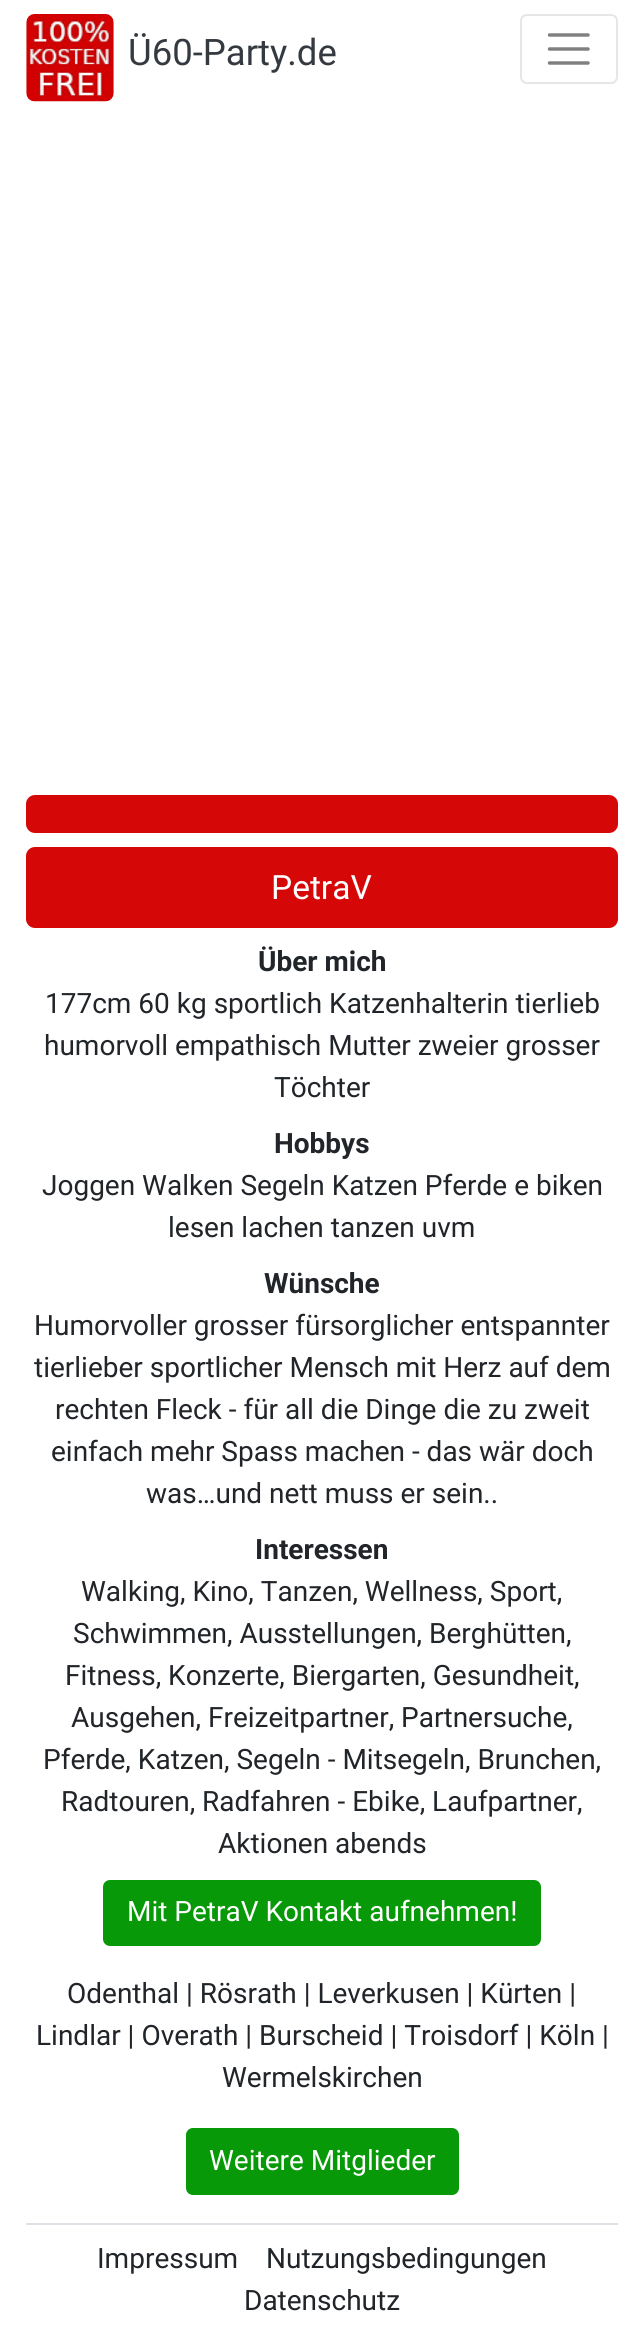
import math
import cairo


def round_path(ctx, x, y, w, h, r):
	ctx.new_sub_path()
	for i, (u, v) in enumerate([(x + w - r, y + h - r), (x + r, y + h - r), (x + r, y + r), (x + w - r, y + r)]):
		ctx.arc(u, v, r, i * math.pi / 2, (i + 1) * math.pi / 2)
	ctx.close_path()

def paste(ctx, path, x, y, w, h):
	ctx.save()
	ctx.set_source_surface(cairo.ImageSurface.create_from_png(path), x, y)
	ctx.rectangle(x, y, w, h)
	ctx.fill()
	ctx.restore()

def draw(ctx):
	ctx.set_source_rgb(1, 1, 1)
	ctx.paint()
	paste(ctx, 'media/1.png', 26, 14, 88, 88)
	ctx.select_font_face('Roboto')
	ctx.set_font_size(36.5)
	ctx.set_source_rgb(0.204, 0.227, 0.251)
	ctx.move_to(128, 65)
	ctx.show_text('Ü60-Party.de')
	round_path(ctx, 521, 15, 96, 68, 6)
	ctx.set_source_rgb(0.902, 0.902, 0.902)
	ctx.stroke()
	ctx.new_path()
	ctx.move_to(549.5, 35)
	ctx.line_to(588, 35)
	ctx.move_to(549.5, 49)
	ctx.line_to(588, 49)
	ctx.move_to(549.5, 63)
	ctx.line_to(588, 63)
	ctx.set_source_rgb(0.502, 0.502, 0.502)
	ctx.set_line_width(3.5)
	ctx.set_line_cap(cairo.LINE_CAP_ROUND)
	ctx.stroke()
	ctx.set_source_rgb(0.839, 0.031, 0.031)
	round_path(ctx, 26, 795, 592, 38, 9)
	ctx.fill()
	round_path(ctx, 26, 847, 592, 81, 9)
	ctx.fill()
	ctx.set_font_size(33.5)
	ctx.set_source_rgb(1, 1, 1)
	ctx.move_to(271, 899)
	ctx.show_text('PetraV')
	ctx.select_font_face('Roboto', cairo.FONT_SLANT_NORMAL, cairo.FONT_WEIGHT_BOLD)
	ctx.set_font_size(28)
	ctx.set_source_rgb(0.129, 0.145, 0.161)
	ctx.move_to(258, 971)
	ctx.show_text('Über mich')
	ctx.select_font_face('Roboto')
	for x, y, s in [
		(45, 1013, '177cm 60 kg sportlich Katzenhalterin tierlieb'),
		(44, 1055, 'humorvoll empathisch Mutter zweier grosser'),
		(274, 1097, 'Töchter'),
	]:
		ctx.move_to(x, y)
		ctx.show_text(s)
	ctx.select_font_face('Roboto', cairo.FONT_SLANT_NORMAL, cairo.FONT_WEIGHT_BOLD)
	ctx.move_to(274, 1153)
	ctx.show_text('Hobbys')
	ctx.select_font_face('Roboto')
	ctx.move_to(42, 1195)
	ctx.show_text('Joggen Walken Segeln Katzen Pferde e biken')
	ctx.move_to(168, 1237)
	ctx.show_text('lesen lachen tanzen uvm')
	ctx.select_font_face('Roboto', cairo.FONT_SLANT_NORMAL, cairo.FONT_WEIGHT_BOLD)
	ctx.move_to(264, 1293)
	ctx.show_text('Wünsche')
	ctx.select_font_face('Roboto')
	for x, y, s in [
		(34, 1335, 'Humorvoller grosser fürsorglicher entspannter'),
		(34, 1377, 'tierlieber sportlicher Mensch mit Herz auf dem'),
		(55, 1419, 'rechten Fleck - für all die Dinge die zu zweit'),
		(51, 1461, 'einfach mehr Spass machen - das wär doch'),
		(146, 1503, 'was…und nett muss er sein..'),
	]:
		ctx.move_to(x, y)
		ctx.show_text(s)
	ctx.select_font_face('Roboto', cairo.FONT_SLANT_NORMAL, cairo.FONT_WEIGHT_BOLD)
	ctx.move_to(255, 1559)
	ctx.show_text('Interessen')
	ctx.select_font_face('Roboto')
	for x, y, s in [
		(81, 1601, 'Walking, Kino, Tanzen, Wellness, Sport,'),
		(73, 1643, 'Schwimmen, Ausstellungen, Berghütten,'),
		(65, 1685, 'Fitness, Konzerte, Biergarten, Gesundheit,'),
		(71, 1727, 'Ausgehen, Freizeitpartner, Partnersuche,'),
		(43, 1769, 'Pferde, Katzen, Segeln - Mitsegeln, Brunchen,'),
		(61, 1811, 'Radtouren, Radfahren - Ebike, Laufpartner,'),
		(218, 1853, 'Aktionen abends'),
	]:
		ctx.move_to(x, y)
		ctx.show_text(s)
	ctx.set_source_rgb(0.031, 0.6, 0.031)
	round_path(ctx, 103, 1880, 438, 66, 7)
	ctx.fill()
	ctx.set_source_rgb(1, 1, 1)
	ctx.move_to(127, 1921)
	ctx.show_text('Mit PetraV Kontakt aufnehmen!')
	ctx.set_source_rgb(0.129, 0.145, 0.161)
	for x, y, s in [
		(67, 2003, 'Odenthal | Rösrath | Leverkusen | Kürten |'),
		(36, 2045, 'Lindlar | Overath | Burscheid | Troisdorf | Köln |'),
		(222, 2087, 'Wermelskirchen'),
	]:
		ctx.move_to(x, y)
		ctx.show_text(s)
	ctx.set_source_rgb(0.031, 0.6, 0.031)
	round_path(ctx, 186, 2128, 273, 67, 7)
	ctx.fill()
	ctx.set_source_rgb(1, 1, 1)
	ctx.move_to(209, 2170)
	ctx.show_text('Weitere Mitglieder')
	ctx.set_source_rgb(0.871, 0.886, 0.902)
	ctx.rectangle(26, 2223, 592, 2)
	ctx.fill()
	ctx.set_source_rgb(0.129, 0.145, 0.161)
	for x, y, s in [
		(97, 2268, 'Impressum'),
		(266, 2268, 'Nutzungsbedingungen'),
		(244, 2310, 'Datenschutz'),
	]:
		ctx.move_to(x, y)
		ctx.show_text(s)


surface = cairo.ImageSurface(cairo.FORMAT_RGB24, 643, 2341)
ctx = cairo.Context(surface)
options = cairo.FontOptions()
options.set_hint_metrics(cairo.HINT_METRICS_OFF)
options.set_hint_style(cairo.HINT_STYLE_NONE)
ctx.set_font_options(options)
ctx.set_miter_limit(4)
draw(ctx)
surface.write_to_png('image.png')
